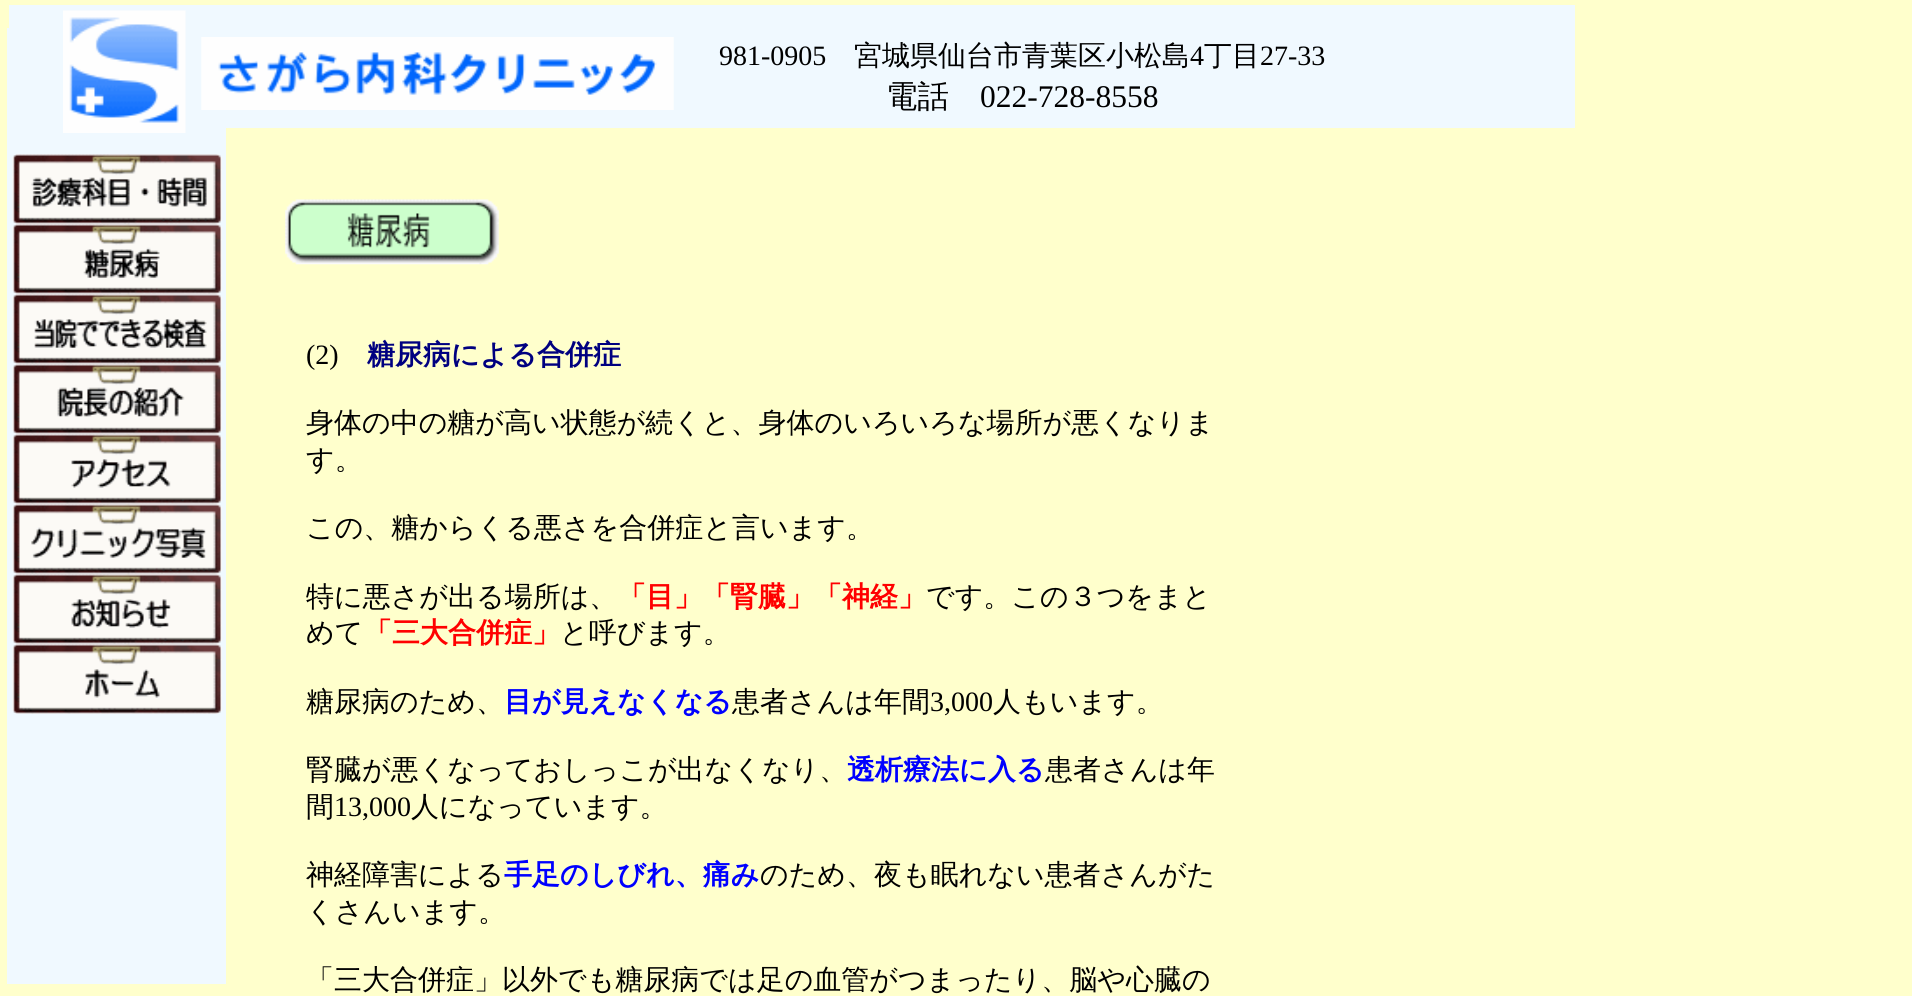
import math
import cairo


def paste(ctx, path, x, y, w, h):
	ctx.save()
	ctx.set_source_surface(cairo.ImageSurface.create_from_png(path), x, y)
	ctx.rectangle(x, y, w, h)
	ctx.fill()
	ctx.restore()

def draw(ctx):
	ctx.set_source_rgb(1, 1, 0.8)
	ctx.paint()
	ctx.set_source_rgb(0.941, 0.973, 1)
	ctx.rectangle(7, 28, 219, 956)
	ctx.fill()
	ctx.rectangle(9, 5, 1566, 123)
	ctx.fill()
	paste(ctx, 'media/1.png', 63, 10, 123, 123)
	paste(ctx, 'media/2.png', 12, 154, 210, 70)
	paste(ctx, 'media/3.png', 12, 224, 210, 70)
	paste(ctx, 'media/4.png', 12, 294, 210, 70)
	paste(ctx, 'media/5.png', 12, 364, 210, 70)
	paste(ctx, 'media/6.png', 12, 434, 210, 70)
	paste(ctx, 'media/7.png', 12, 504, 210, 70)
	paste(ctx, 'media/8.png', 12, 574, 210, 70)
	paste(ctx, 'media/9.png', 12, 644, 210, 70)
	paste(ctx, 'media/10.png', 201, 37, 473, 73)
	ctx.select_font_face('Liberation Serif')
	ctx.set_font_size(28)
	ctx.set_source_rgb(0, 0, 0)
	ctx.move_to(719, 65)
	ctx.show_text('981-0905')
	ctx.select_font_face('WenQuanYi Zen Hei Medium')
	ctx.move_to(854, 65)
	ctx.show_text('宮城県仙台市青葉区小松島')
	ctx.select_font_face('Liberation Serif')
	ctx.move_to(1190, 65)
	ctx.show_text('4')
	ctx.select_font_face('WenQuanYi Zen Hei Medium')
	ctx.move_to(1204, 65)
	ctx.show_text('丁目')
	ctx.select_font_face('Liberation Serif')
	ctx.move_to(1260, 65)
	ctx.show_text('27-33')
	ctx.select_font_face('WenQuanYi Zen Hei Medium')
	ctx.set_font_size(31.5)
	ctx.move_to(886, 107)
	ctx.show_text('電話')
	ctx.select_font_face('Liberation Serif')
	ctx.move_to(980, 107)
	ctx.show_text('022-728-8558')
	paste(ctx, 'media/11.png', 285, 199, 214, 66)
	ctx.set_font_size(28)
	ctx.move_to(306, 364)
	ctx.show_text('(2)')
	ctx.select_font_face('WenQuanYi Zen Hei', cairo.FONT_SLANT_NORMAL, cairo.FONT_WEIGHT_BOLD)
	ctx.set_source_rgb(0, 0, 0.502)
	ctx.move_to(367, 364)
	ctx.show_text('糖尿病による合併症')
	ctx.select_font_face('WenQuanYi Zen Hei Medium')
	ctx.set_source_rgb(0, 0, 0)
	for x, y, s in [
		(306, 432, '身体の中の糖が高い状態が続くと、身体のいろいろな場所が悪くなりま'),
		(306, 469, 'す。'),
		(306, 537, 'この、糖からくる悪さを合併症と言います。'),
		(306, 606, '特に悪さが出る場所は、'),
	]:
		ctx.move_to(x, y)
		ctx.show_text(s)
	ctx.select_font_face('WenQuanYi Zen Hei', cairo.FONT_SLANT_NORMAL, cairo.FONT_WEIGHT_BOLD)
	ctx.set_source_rgb(1, 0, 0)
	ctx.move_to(618, 606)
	ctx.show_text('「目」「腎臓」「神経」')
	ctx.select_font_face('WenQuanYi Zen Hei Medium')
	ctx.set_source_rgb(0, 0, 0)
	ctx.move_to(926, 606)
	ctx.show_text('です。この３つをまと')
	ctx.move_to(306, 642)
	ctx.show_text('めて')
	ctx.select_font_face('WenQuanYi Zen Hei', cairo.FONT_SLANT_NORMAL, cairo.FONT_WEIGHT_BOLD)
	ctx.set_source_rgb(1, 0, 0)
	ctx.move_to(364, 642)
	ctx.show_text('「三大合併症」')
	ctx.select_font_face('WenQuanYi Zen Hei Medium')
	ctx.set_source_rgb(0, 0, 0)
	ctx.move_to(560, 642)
	ctx.show_text('と呼びます。')
	ctx.move_to(306, 711)
	ctx.show_text('糖尿病のため、')
	ctx.select_font_face('WenQuanYi Zen Hei', cairo.FONT_SLANT_NORMAL, cairo.FONT_WEIGHT_BOLD)
	ctx.set_source_rgb(0, 0, 1)
	ctx.move_to(504, 711)
	ctx.show_text('目が見えなくなる')
	ctx.select_font_face('WenQuanYi Zen Hei Medium')
	ctx.set_source_rgb(0, 0, 0)
	ctx.move_to(732, 711)
	ctx.show_text('患者さんは年間')
	ctx.select_font_face('Liberation Serif')
	ctx.move_to(930, 711)
	ctx.show_text('3,000')
	ctx.select_font_face('WenQuanYi Zen Hei Medium')
	ctx.move_to(993, 711)
	ctx.show_text('人もいます。')
	ctx.move_to(306, 779)
	ctx.show_text('腎臓が悪くなっておしっこが出なくなり、')
	ctx.select_font_face('WenQuanYi Zen Hei', cairo.FONT_SLANT_NORMAL, cairo.FONT_WEIGHT_BOLD)
	ctx.set_source_rgb(0, 0, 1)
	ctx.move_to(847, 779)
	ctx.show_text('透析療法に入る')
	ctx.select_font_face('WenQuanYi Zen Hei Medium')
	ctx.set_source_rgb(0, 0, 0)
	ctx.move_to(1045, 779)
	ctx.show_text('患者さんは年')
	ctx.move_to(306, 816)
	ctx.show_text('間')
	ctx.select_font_face('Liberation Serif')
	ctx.move_to(334, 816)
	ctx.show_text('13,000')
	ctx.select_font_face('WenQuanYi Zen Hei Medium')
	ctx.move_to(411, 816)
	ctx.show_text('人になっています。')
	ctx.move_to(306, 884)
	ctx.show_text('神経障害による')
	ctx.select_font_face('WenQuanYi Zen Hei', cairo.FONT_SLANT_NORMAL, cairo.FONT_WEIGHT_BOLD)
	ctx.set_source_rgb(0, 0, 1)
	ctx.move_to(504, 884)
	ctx.show_text('手足のしびれ、痛み')
	ctx.select_font_face('WenQuanYi Zen Hei Medium')
	ctx.set_source_rgb(0, 0, 0)
	for x, y, s in [
		(760, 884, 'のため、夜も眠れない患者さんがた'),
		(306, 921, 'くさんいます。'),
		(306, 989, '「三大合併症」以外でも糖尿病では足の血管がつまったり、脳や心臓の'),
	]:
		ctx.move_to(x, y)
		ctx.show_text(s)


surface = cairo.ImageSurface(cairo.FORMAT_RGB24, 1912, 996)
ctx = cairo.Context(surface)
options = cairo.FontOptions()
options.set_hint_metrics(cairo.HINT_METRICS_OFF)
options.set_hint_style(cairo.HINT_STYLE_NONE)
ctx.set_font_options(options)
ctx.set_miter_limit(4)
draw(ctx)
surface.write_to_png('image.png')
